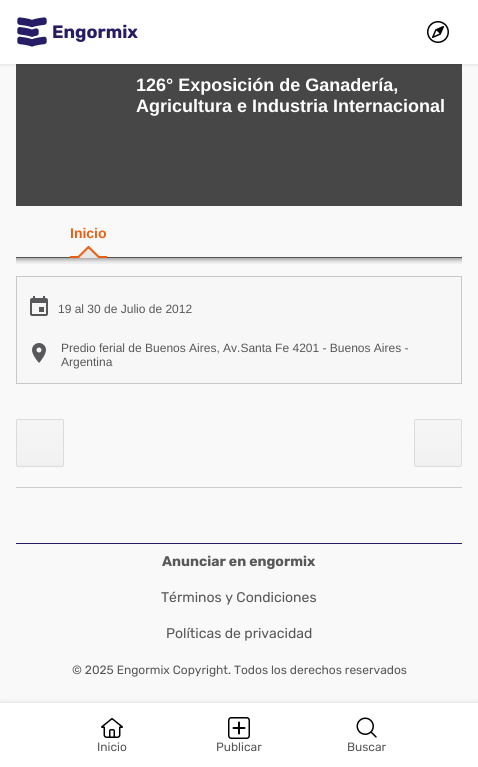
import math
import cairo


def round_path(ctx, x, y, w, h, r):
	ctx.new_sub_path()
	for i, (u, v) in enumerate([(x + w - r, y + h - r), (x + r, y + h - r), (x + r, y + r), (x + w - r, y + r)]):
		ctx.arc(u, v, r, i * math.pi / 2, (i + 1) * math.pi / 2)
	ctx.close_path()

def blur_box(ctx, x, y, w, h, r, blur, alpha):
	ctx.push_group_with_content(cairo.CONTENT_ALPHA)
	ctx.set_operator(cairo.OPERATOR_SOURCE)
	for i in range(15, -16, -2):
		e = blur * i / 6
		if min(w, h) + 2 * e > 0:
			ctx.set_source_rgba(0, 0, 0, alpha * math.erfc((i - 1) / 8.5) / 2)
			round_path(ctx, x - e, y - e, w + 2 * e, h + 2 * e, max(0, min(r + e + blur * .6, min(w, h) / 2 + e)))
			ctx.fill()
	ctx.mask(ctx.pop_group())

def paste(ctx, path, x, y, w, h):
	ctx.save()
	ctx.set_source_surface(cairo.ImageSurface.create_from_png(path), x, y)
	ctx.rectangle(x, y, w, h)
	ctx.fill()
	ctx.restore()

def draw(ctx):
	ctx.set_source_rgb(0.976, 0.976, 0.976)
	ctx.paint()
	ctx.set_source_rgb(0.278, 0.278, 0.278)
	ctx.rectangle(16, 64, 446, 142)
	ctx.fill()
	ctx.set_source_rgb(0, 0, 0)
	blur_box(ctx, 0, 1, 478, 64, 0, 2, 0.1)
	ctx.set_source_rgb(1, 1, 1)
	ctx.rectangle(0, 0, 478, 64)
	ctx.fill()
	paste(ctx, 'media/1.png', 17, 17, 30, 30)
	ctx.select_font_face('Rubik', cairo.FONT_SLANT_NORMAL, cairo.FONT_WEIGHT_BOLD)
	ctx.set_font_size(18)
	ctx.set_source_rgb(0.153, 0.114, 0.404)
	ctx.move_to(52, 38)
	ctx.show_text('Engormix')
	paste(ctx, 'media/2.png', 427, 21, 22, 22)
	ctx.set_source_rgb(0, 0, 0)
	blur_box(ctx, 0, 702, 478, 64, 0, 2, 0.1)
	ctx.set_source_rgb(1, 1, 1)
	ctx.rectangle(0, 703, 478, 64)
	ctx.fill()
	paste(ctx, 'media/3.png', 101, 718, 22, 20)
	ctx.select_font_face('Rubik')
	ctx.set_font_size(12)
	ctx.set_source_rgb(0.345, 0.345, 0.353)
	ctx.move_to(97, 751)
	ctx.show_text('Inicio')
	paste(ctx, 'media/4.png', 228, 717, 22, 22)
	ctx.move_to(216, 751)
	ctx.show_text('Publicar')
	paste(ctx, 'media/5.png', 356, 717, 21, 21)
	ctx.move_to(347, 751)
	ctx.show_text('Buscar')
	ctx.select_font_face('Liberation Sans', cairo.FONT_SLANT_NORMAL, cairo.FONT_WEIGHT_BOLD)
	ctx.set_font_size(18)
	ctx.set_source_rgb(1, 1, 1)
	ctx.move_to(136, 91)
	ctx.show_text('126° Exposición de Ganadería,')
	ctx.move_to(136, 112)
	ctx.show_text('Agricultura e Industria Internacional')
	ctx.save()
	ctx.rectangle(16, 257, 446, 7)
	ctx.clip()
	ctx.set_source_rgb(0.345, 0.345, 0.353)
	blur_box(ctx, 16, 257, 446, 1, 0, 3.5, 1)
	ctx.restore()
	ctx.set_source_rgb(0.345, 0.345, 0.353)
	ctx.rectangle(16, 257, 446, 1)
	ctx.fill()
	paste(ctx, 'media/6.png', 70, 246, 37, 12)
	ctx.set_font_size(14)
	ctx.set_source_rgb(0.914, 0.376, 0.078)
	ctx.move_to(70, 238)
	ctx.show_text('Inicio')
	ctx.set_source_rgb(0.965, 0.965, 0.965)
	ctx.rectangle(16.5, 276.5, 445, 107)
	ctx.fill_preserve()
	ctx.set_source_rgb(0.784, 0.784, 0.784)
	ctx.set_line_width(1)
	ctx.stroke()
	paste(ctx, 'media/7.png', 30, 296, 18, 20)
	ctx.select_font_face('Liberation Sans')
	ctx.set_font_size(12)
	ctx.set_source_rgb(0.345, 0.345, 0.353)
	ctx.move_to(58, 313)
	ctx.show_text('19 al 30 de Julio de 2012')
	paste(ctx, 'media/8.png', 32, 343, 14, 20)
	ctx.move_to(61, 352)
	ctx.show_text('Predio ferial de Buenos Aires, Av.Santa Fe 4201 - Buenos Aires -')
	ctx.move_to(61, 366)
	ctx.show_text('Argentina')
	ctx.save()
	round_path(ctx, 16, 419, 48, 48, 2)
	ctx.clip()
	gradient = cairo.LinearGradient(40, 420, 40, 466)
	gradient.add_color_stop_rgba(0.11, 0.961, 0.961, 0.961, 1)
	gradient.add_color_stop_rgba(1, 0.945, 0.945, 0.945, 1)
	ctx.set_source(gradient)
	ctx.rectangle(16, 420, 48, 46)
	ctx.fill()
	ctx.restore()
	round_path(ctx, 16.5, 419.5, 47, 47, 1.5)
	ctx.set_source_rgb(0.863, 0.863, 0.863)
	ctx.stroke()
	ctx.save()
	round_path(ctx, 414, 419, 48, 48, 2)
	ctx.clip()
	gradient = cairo.LinearGradient(438, 420, 438, 466)
	gradient.add_color_stop_rgba(0.11, 0.961, 0.961, 0.961, 1)
	gradient.add_color_stop_rgba(1, 0.945, 0.945, 0.945, 1)
	ctx.set_source(gradient)
	ctx.rectangle(414, 420, 48, 46)
	ctx.fill()
	ctx.restore()
	round_path(ctx, 414.5, 419.5, 47, 47, 1.5)
	ctx.stroke()
	ctx.set_source_rgb(0.8, 0.8, 0.8)
	ctx.rectangle(16, 487, 446, 1)
	ctx.fill()
	ctx.set_source_rgb(0.153, 0.114, 0.404)
	ctx.rectangle(16, 543, 446, 1)
	ctx.fill()
	ctx.select_font_face('Rubik', cairo.FONT_SLANT_NORMAL, cairo.FONT_WEIGHT_BOLD)
	ctx.set_font_size(14)
	ctx.set_source_rgb(0.345, 0.345, 0.353)
	ctx.move_to(162, 566)
	ctx.show_text('Anunciar en engormix')
	ctx.select_font_face('Rubik')
	ctx.move_to(161, 602)
	ctx.show_text('Términos y Condiciones')
	ctx.move_to(166, 638)
	ctx.show_text('Políticas de privacidad')
	ctx.set_font_size(12)
	ctx.move_to(72, 674)
	ctx.show_text('© 2025 Engormix Copyright. Todos los derechos reservados')


surface = cairo.ImageSurface(cairo.FORMAT_RGB24, 478, 767)
ctx = cairo.Context(surface)
options = cairo.FontOptions()
options.set_hint_metrics(cairo.HINT_METRICS_OFF)
options.set_hint_style(cairo.HINT_STYLE_NONE)
ctx.set_font_options(options)
ctx.set_miter_limit(4)
draw(ctx)
surface.write_to_png('image.png')
